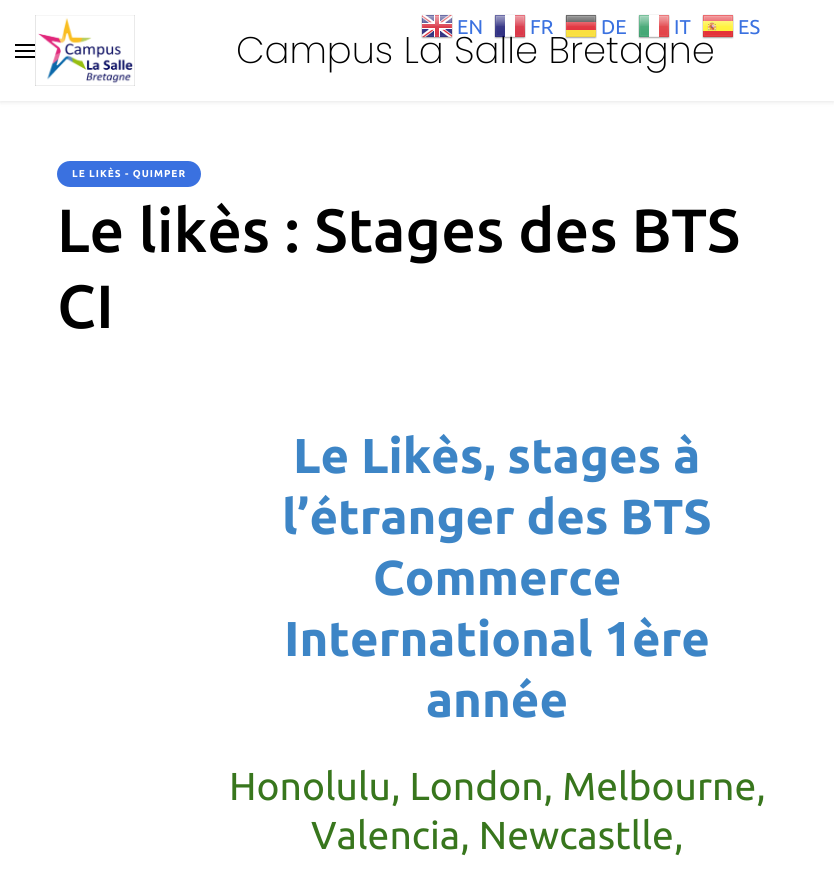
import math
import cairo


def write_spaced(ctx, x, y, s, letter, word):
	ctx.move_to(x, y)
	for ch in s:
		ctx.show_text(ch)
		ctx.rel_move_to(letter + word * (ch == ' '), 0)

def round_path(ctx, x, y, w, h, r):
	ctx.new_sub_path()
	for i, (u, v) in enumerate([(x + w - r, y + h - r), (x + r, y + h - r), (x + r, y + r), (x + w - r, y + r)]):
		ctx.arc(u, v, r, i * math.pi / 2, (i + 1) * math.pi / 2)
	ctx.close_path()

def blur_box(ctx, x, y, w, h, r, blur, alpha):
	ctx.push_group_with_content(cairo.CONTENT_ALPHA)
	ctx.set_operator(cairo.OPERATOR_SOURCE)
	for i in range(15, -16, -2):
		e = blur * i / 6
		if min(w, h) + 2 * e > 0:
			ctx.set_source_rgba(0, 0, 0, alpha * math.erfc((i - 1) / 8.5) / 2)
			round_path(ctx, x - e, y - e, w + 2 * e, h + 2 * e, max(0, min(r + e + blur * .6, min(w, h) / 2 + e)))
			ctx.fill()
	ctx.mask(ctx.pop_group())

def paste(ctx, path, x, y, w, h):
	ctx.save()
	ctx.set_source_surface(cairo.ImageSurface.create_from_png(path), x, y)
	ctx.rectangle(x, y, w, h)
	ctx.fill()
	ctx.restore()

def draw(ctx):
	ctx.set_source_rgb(1, 1, 1)
	ctx.paint()
	ctx.set_source_rgb(0, 0, 0)
	blur_box(ctx, 0, 1, 834, 101, 0, 2.5, 0.1)
	ctx.set_source_rgb(1, 1, 1)
	ctx.rectangle(0, 0, 834, 101)
	ctx.fill()
	ctx.select_font_face('Poppins ExtraLight')
	ctx.set_font_size(37)
	ctx.set_source_rgb(0, 0, 0)
	ctx.move_to(236, 63)
	ctx.show_text('Campus La Salle Bretagne')
	paste(ctx, 'media/1.png', 421, 14, 32, 25)
	ctx.select_font_face('Ubuntu')
	ctx.set_font_size(20)
	ctx.set_source_rgb(0.227, 0.443, 0.878)
	ctx.move_to(457, 34)
	ctx.show_text('EN')
	paste(ctx, 'media/2.png', 494, 14, 32, 25)
	ctx.move_to(530, 34)
	ctx.show_text('FR')
	paste(ctx, 'media/3.png', 565, 14, 32, 25)
	ctx.move_to(601, 34)
	ctx.show_text('DE')
	paste(ctx, 'media/4.png', 638, 14, 32, 25)
	ctx.move_to(674, 34)
	ctx.show_text('IT')
	paste(ctx, 'media/5.png', 702, 14, 32, 25)
	ctx.move_to(738, 34)
	ctx.show_text('ES')
	ctx.set_source_rgb(0, 0, 0)
	ctx.rectangle(15, 44, 20, 2)
	ctx.rectangle(15, 50, 20, 2)
	ctx.rectangle(15, 56, 20, 2)
	ctx.fill()
	paste(ctx, 'media/6.png', 35, 15, 100, 71)
	ctx.set_source_rgb(0.227, 0.443, 0.878)
	round_path(ctx, 57, 161, 144, 26, 13)
	ctx.fill()
	ctx.select_font_face('Ubuntu', cairo.FONT_SLANT_NORMAL, cairo.FONT_WEIGHT_BOLD)
	ctx.set_font_size(10)
	ctx.set_source_rgb(1, 1, 1)
	write_spaced(ctx, 72, 177, 'LE LIKÈS - QUIMPER', 1, 0)
	ctx.select_font_face('Ubuntu Medium')
	ctx.set_font_size(61)
	ctx.set_source_rgb(0, 0, 0)
	ctx.move_to(57, 252)
	ctx.show_text('Le likès : Stages des BTS')
	ctx.move_to(57, 328)
	ctx.show_text('CI')
	ctx.select_font_face('Ubuntu', cairo.FONT_SLANT_NORMAL, cairo.FONT_WEIGHT_BOLD)
	ctx.set_font_size(49)
	ctx.set_source_rgb(0.239, 0.522, 0.776)
	for x, y, s in [
		(293, 473, 'Le Likès, stages à'),
		(282, 534, 'l’étranger des BTS'),
		(373, 595, 'Commerce'),
		(284, 656, 'International 1ère'),
		(426, 717, 'année'),
	]:
		ctx.move_to(x, y)
		ctx.show_text(s)
	ctx.select_font_face('Ubuntu')
	ctx.set_font_size(39)
	ctx.set_source_rgb(0.22, 0.463, 0.114)
	ctx.move_to(229, 800)
	ctx.show_text('Honolulu, London, Melbourne,')
	ctx.move_to(311, 849)
	ctx.show_text('Valencia, Newcastlle,')


surface = cairo.ImageSurface(cairo.FORMAT_RGB24, 834, 875)
ctx = cairo.Context(surface)
options = cairo.FontOptions()
options.set_hint_metrics(cairo.HINT_METRICS_OFF)
options.set_hint_style(cairo.HINT_STYLE_NONE)
ctx.set_font_options(options)
ctx.set_miter_limit(4)
draw(ctx)
surface.write_to_png('image.png')
